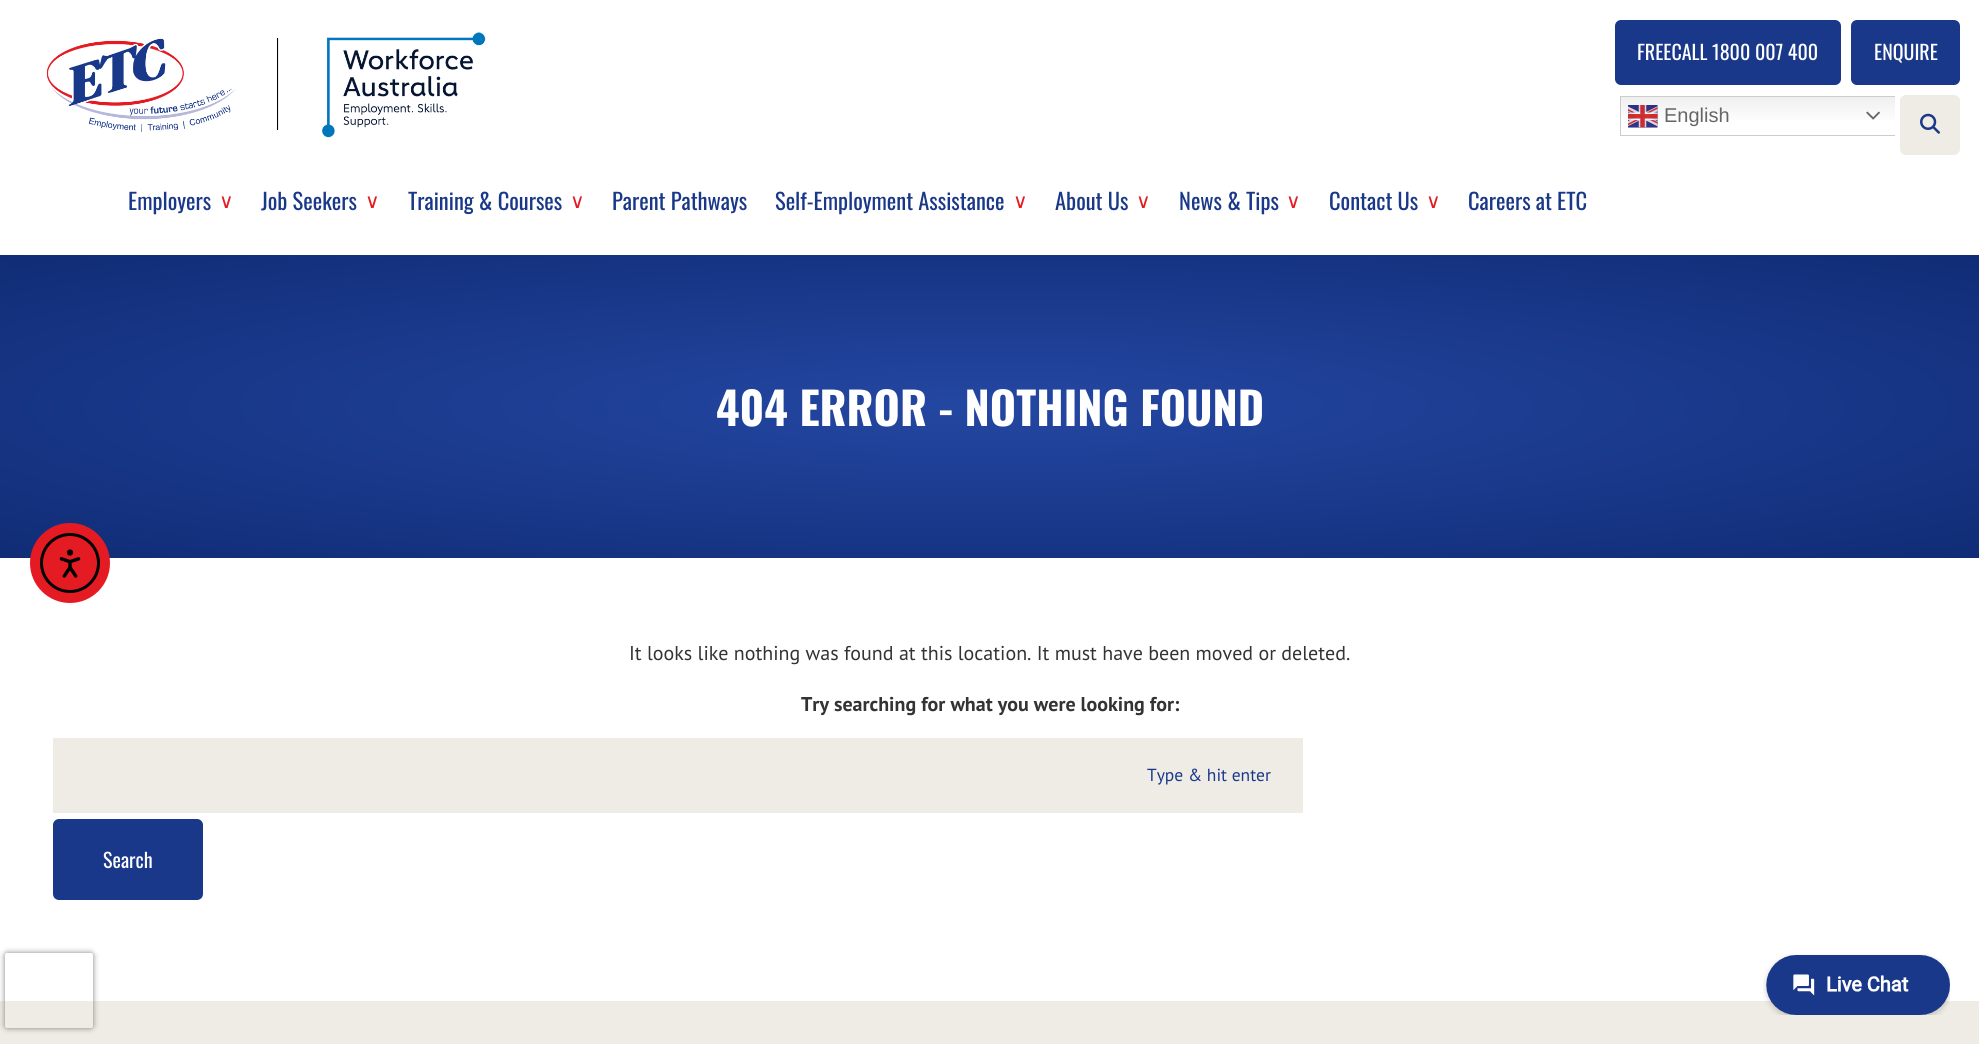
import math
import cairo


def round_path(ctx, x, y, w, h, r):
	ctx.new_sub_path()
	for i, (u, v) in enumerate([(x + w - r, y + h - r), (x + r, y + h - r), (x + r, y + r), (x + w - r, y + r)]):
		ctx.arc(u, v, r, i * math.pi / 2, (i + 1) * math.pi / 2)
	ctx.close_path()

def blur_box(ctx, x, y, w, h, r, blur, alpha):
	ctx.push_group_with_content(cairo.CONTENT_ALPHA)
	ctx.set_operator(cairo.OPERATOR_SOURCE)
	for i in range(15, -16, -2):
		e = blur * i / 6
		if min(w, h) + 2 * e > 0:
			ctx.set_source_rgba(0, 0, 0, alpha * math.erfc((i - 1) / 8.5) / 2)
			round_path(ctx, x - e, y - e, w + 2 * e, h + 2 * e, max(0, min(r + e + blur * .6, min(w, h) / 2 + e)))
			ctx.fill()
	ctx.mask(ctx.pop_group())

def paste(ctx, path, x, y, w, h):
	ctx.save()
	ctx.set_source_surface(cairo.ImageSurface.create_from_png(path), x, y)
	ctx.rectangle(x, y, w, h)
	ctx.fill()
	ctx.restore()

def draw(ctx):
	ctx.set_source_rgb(1, 1, 1)
	ctx.paint()
	paste(ctx, 'media/1.png', 47, 32, 439, 106)
	ctx.set_source_rgb(0.098, 0.22, 0.541)
	round_path(ctx, 1616.5, 21.5, 223, 62, 4.5)
	ctx.fill_preserve()
	ctx.set_line_width(3)
	ctx.stroke()
	ctx.select_font_face('Oswald')
	ctx.set_font_size(20)
	ctx.set_source_rgb(1, 1, 1)
	ctx.move_to(1637, 60)
	ctx.show_text('FREECALL 1800 007 400')
	ctx.set_source_rgb(0.098, 0.22, 0.541)
	round_path(ctx, 1852.5, 21.5, 106, 62, 4.5)
	ctx.fill_preserve()
	ctx.stroke()
	ctx.set_source_rgb(1, 1, 1)
	ctx.move_to(1874, 60)
	ctx.show_text('ENQUIRE')
	gradient = cairo.LinearGradient(1758, 96, 1758, 136)
	gradient.add_color_stop_rgba(0, 0.937, 0.937, 0.937, 1)
	gradient.add_color_stop_rgba(0.7, 1, 1, 1, 1)
	ctx.set_source(gradient)
	ctx.rectangle(1621, 97, 274, 23)
	ctx.fill()
	ctx.set_source_rgb(0.937, 0.922, 0.898)
	round_path(ctx, 1900, 95, 60, 60, 6)
	ctx.fill()
	ctx.save()
	ctx.rectangle(1620, 96, 275, 40)
	ctx.clip()
	ctx.rectangle(1620.5, 96.5, 289, 39)
	ctx.set_source_rgb(0.8, 0.8, 0.8)
	ctx.set_line_width(1)
	ctx.stroke()
	ctx.restore()
	paste(ctx, 'media/2.png', 1628, 105, 30, 23)
	ctx.select_font_face('Liberation Sans')
	ctx.set_source_rgb(0.4, 0.4, 0.4)
	ctx.move_to(1664, 122)
	ctx.show_text('English')
	paste(ctx, 'media/3.png', 1866, 111, 14, 9)
	paste(ctx, 'media/4.png', 1920, 113, 20, 21)
	ctx.select_font_face('Oswald')
	ctx.set_font_size(22.5)
	ctx.set_source_rgb(0.098, 0.22, 0.541)
	ctx.move_to(128, 210)
	ctx.show_text('Employers')
	ctx.select_font_face('DejaVu Sans')
	ctx.set_font_size(20)
	ctx.set_source_rgb(0.898, 0.106, 0.141)
	ctx.move_to(219, 208)
	ctx.show_text('∨')
	ctx.select_font_face('Oswald')
	ctx.set_font_size(22.5)
	ctx.set_source_rgb(0.098, 0.22, 0.541)
	ctx.move_to(261, 210)
	ctx.show_text('Job Seekers')
	ctx.select_font_face('DejaVu Sans')
	ctx.set_font_size(20)
	ctx.set_source_rgb(0.898, 0.106, 0.141)
	ctx.move_to(365, 208)
	ctx.show_text('∨')
	ctx.select_font_face('Oswald')
	ctx.set_font_size(22.5)
	ctx.set_source_rgb(0.098, 0.22, 0.541)
	ctx.move_to(408, 210)
	ctx.show_text('Training & Courses')
	ctx.select_font_face('DejaVu Sans')
	ctx.set_font_size(20)
	ctx.set_source_rgb(0.898, 0.106, 0.141)
	ctx.move_to(570, 208)
	ctx.show_text('∨')
	ctx.select_font_face('Oswald')
	ctx.set_font_size(22.5)
	ctx.set_source_rgb(0.098, 0.22, 0.541)
	ctx.move_to(612, 210)
	ctx.show_text('Parent Pathways')
	ctx.move_to(775, 210)
	ctx.show_text('Self-Employment Assistance')
	ctx.select_font_face('DejaVu Sans')
	ctx.set_font_size(20)
	ctx.set_source_rgb(0.898, 0.106, 0.141)
	ctx.move_to(1013, 208)
	ctx.show_text('∨')
	ctx.select_font_face('Oswald')
	ctx.set_font_size(22.5)
	ctx.set_source_rgb(0.098, 0.22, 0.541)
	ctx.move_to(1055, 210)
	ctx.show_text('About Us')
	ctx.select_font_face('DejaVu Sans')
	ctx.set_font_size(20)
	ctx.set_source_rgb(0.898, 0.106, 0.141)
	ctx.move_to(1136, 208)
	ctx.show_text('∨')
	ctx.select_font_face('Oswald')
	ctx.set_font_size(22.5)
	ctx.set_source_rgb(0.098, 0.22, 0.541)
	ctx.move_to(1179, 210)
	ctx.show_text('News & Tips')
	ctx.select_font_face('DejaVu Sans')
	ctx.set_font_size(20)
	ctx.set_source_rgb(0.898, 0.106, 0.141)
	ctx.move_to(1286, 208)
	ctx.show_text('∨')
	ctx.select_font_face('Oswald')
	ctx.set_font_size(22.5)
	ctx.set_source_rgb(0.098, 0.22, 0.541)
	ctx.move_to(1329, 210)
	ctx.show_text('Contact Us')
	ctx.select_font_face('DejaVu Sans')
	ctx.set_font_size(20)
	ctx.set_source_rgb(0.898, 0.106, 0.141)
	ctx.move_to(1426, 208)
	ctx.show_text('∨')
	ctx.select_font_face('Oswald')
	ctx.set_font_size(22.5)
	ctx.set_source_rgb(0.098, 0.22, 0.541)
	ctx.move_to(1468, 210)
	ctx.show_text('Careers at ETC')
	gradient = cairo.RadialGradient(0, 0, 0, 0, 0, 1)
	gradient.set_matrix(cairo.Matrix(1 / 1400, 0, 0, 1 / 214, -1 * 990 / 1400, -1 * 406 / 214))
	gradient.add_color_stop_rgba(0, 0.141, 0.278, 0.635, 1)
	gradient.add_color_stop_rgba(1, 0.063, 0.173, 0.463, 1)
	ctx.set_source(gradient)
	ctx.rectangle(0, 255, 1979, 303)
	ctx.fill()
	ctx.select_font_face('Oswald', cairo.FONT_SLANT_NORMAL, cairo.FONT_WEIGHT_BOLD)
	ctx.set_font_size(45)
	ctx.set_source_rgb(1, 1, 1)
	ctx.move_to(716, 426)
	ctx.show_text('404 ERROR - NOTHING FOUND')
	ctx.set_source_rgb(0.898, 0.106, 0.141)
	ctx.new_path()
	ctx.arc(70, 563, 40, 0, 2 * math.pi)
	ctx.fill()
	ctx.arc(70, 563, 28.5, 0, 2 * math.pi)
	ctx.set_source_rgb(0, 0, 0)
	ctx.stroke()
	paste(ctx, 'media/5.png', 59, 549, 22, 29)
	ctx.select_font_face('PT Sans')
	ctx.set_font_size(20)
	ctx.set_source_rgb(0.2, 0.2, 0.2)
	ctx.move_to(629, 660)
	ctx.show_text('It looks like nothing was found at this location. It must have been moved or deleted.')
	ctx.select_font_face('PT Sans', cairo.FONT_SLANT_NORMAL, cairo.FONT_WEIGHT_BOLD)
	ctx.move_to(801, 711)
	ctx.show_text('Try searching for what you were looking for:')
	ctx.set_source_rgb(0.937, 0.922, 0.898)
	ctx.rectangle(53, 738, 1250, 75)
	ctx.fill()
	ctx.select_font_face('PT Sans')
	ctx.set_font_size(17.5)
	ctx.set_source_rgb(0.098, 0.22, 0.541)
	ctx.move_to(1147, 781)
	ctx.show_text('Type & hit enter')
	round_path(ctx, 53, 819, 150, 81, 6)
	ctx.fill()
	ctx.select_font_face('Oswald')
	ctx.set_font_size(20)
	ctx.set_source_rgb(1, 1, 1)
	ctx.move_to(103, 868)
	ctx.show_text('Search')
	ctx.set_source_rgb(0.937, 0.922, 0.898)
	ctx.rectangle(0, 1001, 1979, 43)
	ctx.fill()
	ctx.save()
	ctx.set_fill_rule(cairo.FILL_RULE_EVEN_ODD)
	ctx.new_path()
	ctx.move_to(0, 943)
	ctx.line_to(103, 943)
	ctx.line_to(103, 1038)
	ctx.line_to(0, 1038)
	ctx.close_path()
	ctx.move_to(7.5, 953)
	ctx.line_to(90.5, 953)
	ctx.curve_to(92, 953, 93, 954, 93, 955.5)
	ctx.line_to(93, 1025.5)
	ctx.curve_to(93, 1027, 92, 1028, 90.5, 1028)
	ctx.line_to(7.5, 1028)
	ctx.curve_to(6, 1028, 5, 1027, 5, 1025.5)
	ctx.line_to(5, 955.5)
	ctx.curve_to(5, 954, 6, 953, 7.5, 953)
	ctx.close_path()
	ctx.clip()
	ctx.set_source_rgb(0.502, 0.502, 0.502)
	blur_box(ctx, 5, 953, 88, 75, 2.5, 3, 1)
	ctx.restore()
	paste(ctx, 'media/6.png', 1763, 954, 187, 61)


surface = cairo.ImageSurface(cairo.FORMAT_RGB24, 1979, 1044)
ctx = cairo.Context(surface)
options = cairo.FontOptions()
options.set_hint_metrics(cairo.HINT_METRICS_OFF)
options.set_hint_style(cairo.HINT_STYLE_NONE)
ctx.set_font_options(options)
ctx.set_miter_limit(4)
draw(ctx)
surface.write_to_png('image.png')
